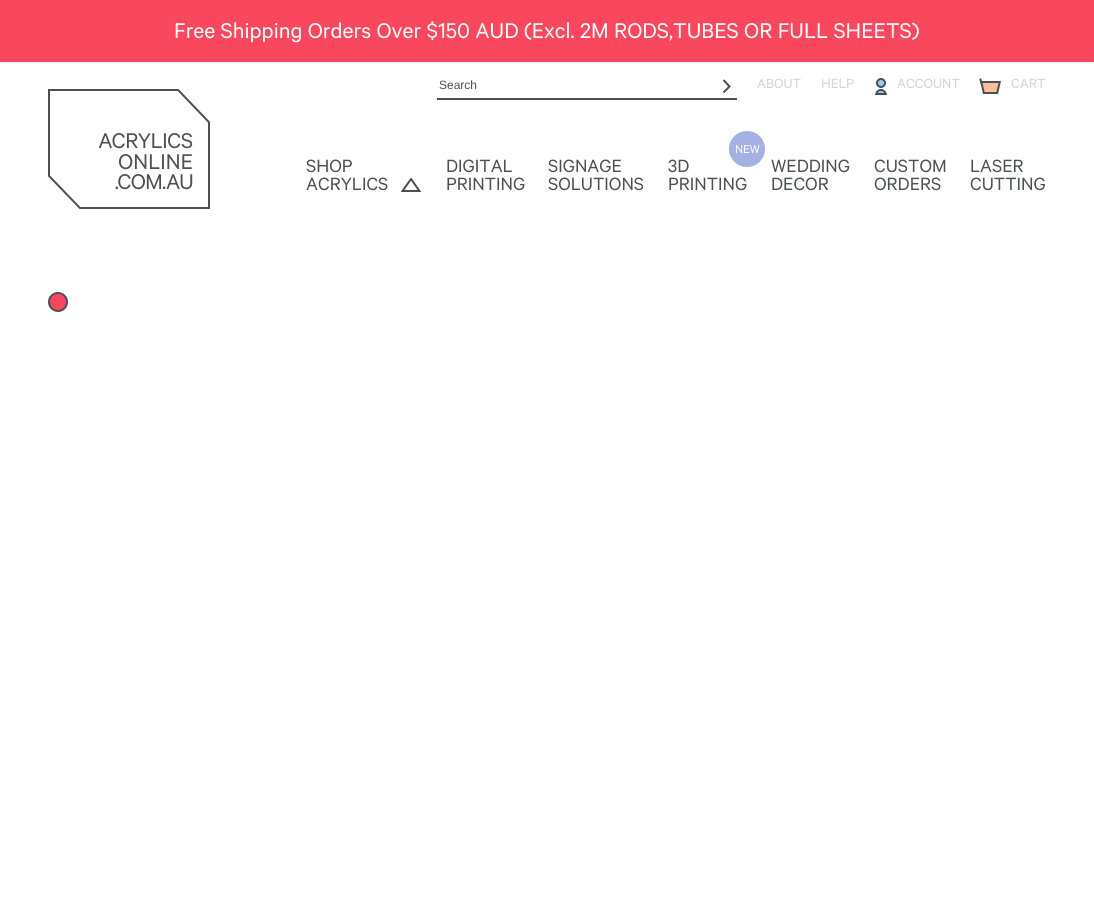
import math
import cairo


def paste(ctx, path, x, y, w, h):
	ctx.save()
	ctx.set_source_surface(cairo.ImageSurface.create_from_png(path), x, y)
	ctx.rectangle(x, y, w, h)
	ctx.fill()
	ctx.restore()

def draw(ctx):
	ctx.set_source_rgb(1, 1, 1)
	ctx.paint()
	ctx.set_source_rgb(0.973, 0.282, 0.369)
	ctx.rectangle(0, 0, 1094, 62)
	ctx.fill()
	ctx.select_font_face('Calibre')
	ctx.set_font_size(24)
	ctx.set_source_rgb(1, 1, 1)
	ctx.move_to(174, 38)
	ctx.show_text('Free Shipping Orders Over $150 AUD (Excl. 2M RODS,TUBES OR FULL SHEETS)')
	paste(ctx, 'media/1.png', 48, 89, 162, 120)
	ctx.set_source_rgb(0.294, 0.314, 0.329)
	ctx.rectangle(437, 98, 300, 2)
	ctx.fill()
	ctx.select_font_face('Liberation Sans')
	ctx.set_font_size(12)
	ctx.move_to(439, 89)
	ctx.show_text('Search')
	ctx.new_path()
	ctx.move_to(723.5, 80)
	ctx.line_to(729.5, 86.5)
	ctx.line_to(723.5, 92.5)
	ctx.stroke()
	ctx.select_font_face('Calibre')
	ctx.set_font_size(15)
	ctx.set_source_rgb(0.843, 0.824, 0.796)
	ctx.move_to(757, 88)
	ctx.show_text('ABOUT')
	ctx.move_to(821, 88)
	ctx.show_text('HELP')
	paste(ctx, 'media/2.png', 875, 78, 12, 17)
	ctx.move_to(897, 88)
	ctx.show_text('ACCOUNT')
	paste(ctx, 'media/3.png', 979, 78, 22, 16)
	ctx.move_to(1011, 88)
	ctx.show_text('CART')
	ctx.set_font_size(20)
	ctx.set_source_rgb(0.294, 0.314, 0.329)
	ctx.move_to(306, 172)
	ctx.show_text('SHOP')
	ctx.move_to(306, 190)
	ctx.show_text('ACRYLICS')
	ctx.save()
	ctx.rectangle(401, 178, 21, 15)
	ctx.clip()
	ctx.new_path()
	ctx.move_to(411, 179)
	ctx.line_to(402.5, 191)
	ctx.line_to(419.5, 191)
	ctx.close_path()
	ctx.set_line_cap(cairo.LINE_CAP_SQUARE)
	ctx.stroke()
	ctx.restore()
	for x, y, s in [
		(446, 172, 'DIGITAL'),
		(446, 190, 'PRINTING'),
		(548, 172, 'SIGNAGE'),
		(548, 190, 'SOLUTIONS'),
	]:
		ctx.move_to(x, y)
		ctx.show_text(s)
	ctx.set_source_rgb(0.647, 0.69, 0.89)
	ctx.new_path()
	ctx.arc(747, 149, 18, 0, 2 * math.pi)
	ctx.fill()
	ctx.set_font_size(13)
	ctx.set_source_rgb(1, 1, 1)
	ctx.move_to(735, 153)
	ctx.show_text('NEW')
	ctx.set_font_size(20)
	ctx.set_source_rgb(0.294, 0.314, 0.329)
	for x, y, s in [
		(668, 172, '3D'),
		(668, 190, 'PRINTING'),
		(771, 172, 'WEDDING'),
		(771, 190, 'DECOR'),
		(874, 172, 'CUSTOM'),
		(874, 190, 'ORDERS'),
		(970, 172, 'LASER'),
		(970, 190, 'CUTTING'),
	]:
		ctx.move_to(x, y)
		ctx.show_text(s)
	ctx.set_source_rgb(0.973, 0.282, 0.369)
	ctx.new_path()
	ctx.arc(58, 302, 9, 0, 2 * math.pi)
	ctx.fill_preserve()
	ctx.set_source_rgb(0.294, 0.314, 0.329)
	ctx.stroke()


surface = cairo.ImageSurface(cairo.FORMAT_RGB24, 1094, 898)
ctx = cairo.Context(surface)
options = cairo.FontOptions()
options.set_hint_metrics(cairo.HINT_METRICS_OFF)
options.set_hint_style(cairo.HINT_STYLE_NONE)
ctx.set_font_options(options)
ctx.set_miter_limit(4)
draw(ctx)
surface.write_to_png('image.png')
